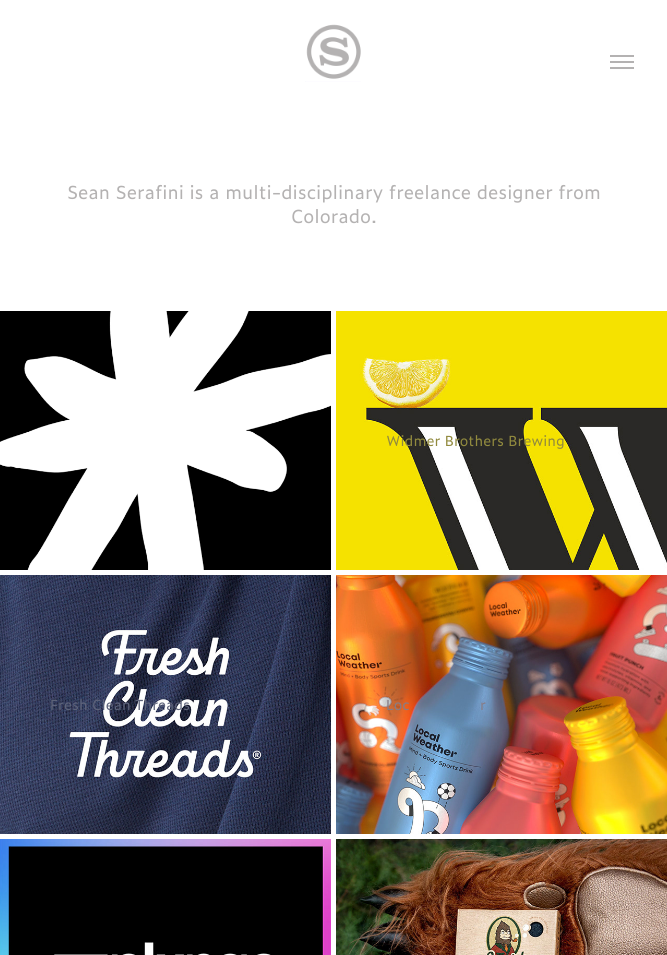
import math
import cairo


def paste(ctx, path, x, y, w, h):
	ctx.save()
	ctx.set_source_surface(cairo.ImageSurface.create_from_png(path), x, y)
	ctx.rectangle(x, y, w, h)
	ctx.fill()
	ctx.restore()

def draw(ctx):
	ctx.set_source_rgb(1, 1, 1)
	ctx.paint()
	paste(ctx, 'media/1.png', 305, 24, 56, 58)
	ctx.set_source_rgb(0.706, 0.698, 0.698)
	ctx.rectangle(610, 55, 24, 2)
	ctx.rectangle(610, 61, 24, 2)
	ctx.rectangle(610, 67, 24, 2)
	ctx.fill()
	ctx.select_font_face('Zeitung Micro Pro')
	ctx.set_font_size(18)
	ctx.move_to(67, 199)
	ctx.show_text('Sean Serafini is a multi-disciplinary freelance designer from')
	ctx.move_to(291, 223)
	ctx.show_text('Colorado.')
	paste(ctx, 'media/2.png', 0, 311, 331, 259)
	paste(ctx, 'media/3.png', 336, 311, 331, 259)
	ctx.set_font_size(14)
	ctx.set_source_rgb(0.569, 0.541, 0.243)
	ctx.move_to(386, 446)
	ctx.show_text('Widmer Brothers Brewing')
	paste(ctx, 'media/4.png', 0, 575, 331, 259)
	ctx.set_source_rgb(0.365, 0.388, 0.478)
	ctx.move_to(50, 710)
	ctx.show_text('Fresh Clean Threads')
	paste(ctx, 'media/5.png', 336, 575, 331, 259)
	ctx.set_source_rgb(0.529, 0.486, 0.522)
	ctx.move_to(386, 710)
	ctx.show_text('Loc')
	ctx.move_to(480, 710)
	ctx.show_text('r')
	paste(ctx, 'media/6.png', 0, 839, 331, 116)
	paste(ctx, 'media/7.png', 336, 839, 331, 116)


surface = cairo.ImageSurface(cairo.FORMAT_RGB24, 667, 955)
ctx = cairo.Context(surface)
options = cairo.FontOptions()
options.set_hint_metrics(cairo.HINT_METRICS_OFF)
options.set_hint_style(cairo.HINT_STYLE_NONE)
ctx.set_font_options(options)
ctx.set_miter_limit(4)
draw(ctx)
surface.write_to_png('image.png')
